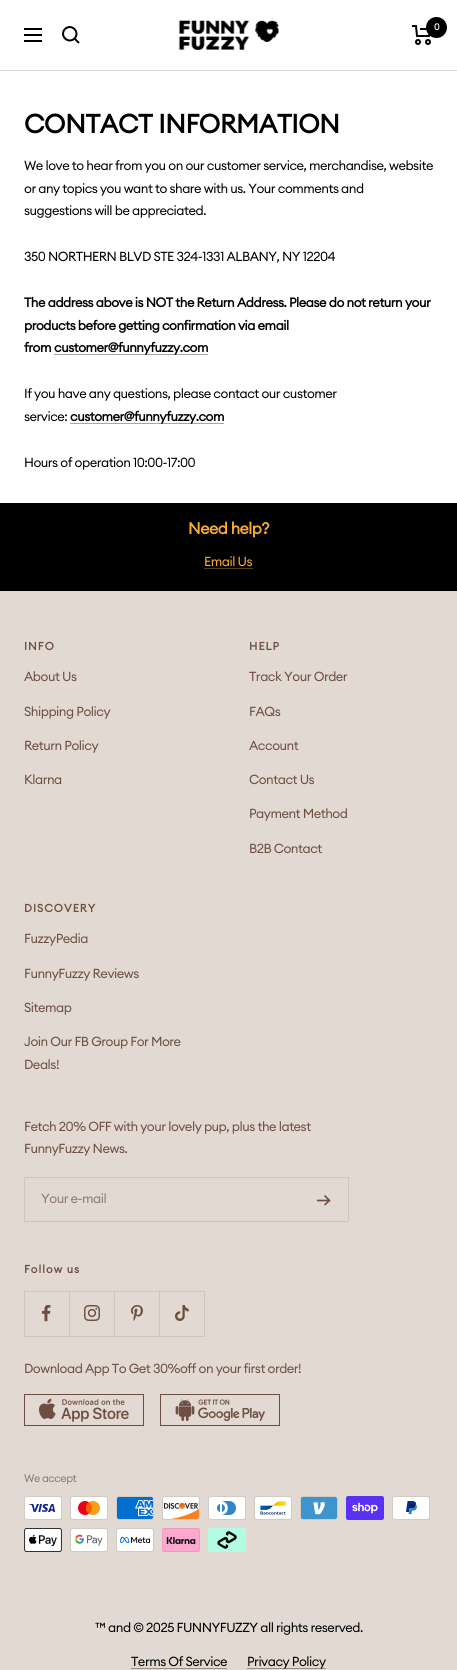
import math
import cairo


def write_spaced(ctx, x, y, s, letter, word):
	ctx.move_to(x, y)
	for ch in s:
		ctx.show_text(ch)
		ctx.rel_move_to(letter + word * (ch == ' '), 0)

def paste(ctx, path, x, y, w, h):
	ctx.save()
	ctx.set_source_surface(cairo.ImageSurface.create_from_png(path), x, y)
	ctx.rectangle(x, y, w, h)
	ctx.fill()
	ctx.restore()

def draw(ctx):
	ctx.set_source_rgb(1, 1, 1)
	ctx.paint()
	ctx.set_source_rgb(0.851, 0.851, 0.851)
	ctx.rectangle(0, 70, 457, 1)
	ctx.fill()
	ctx.new_path()
	ctx.move_to(24, 29)
	ctx.line_to(42, 29)
	ctx.move_to(24, 41)
	ctx.line_to(42, 41)
	ctx.close_path()
	ctx.move_to(24, 35)
	ctx.line_to(42, 35)
	ctx.close_path()
	ctx.move_to(74.5, 38.5)
	ctx.curve_to(80.5, 32, 71.5, 23, 65, 29)
	ctx.curve_to(59, 35.5, 68, 44.5, 74.5, 38.5)
	ctx.close_path()
	ctx.move_to(74.5, 38.5)
	ctx.line_to(79, 43)
	ctx.set_source_rgb(0, 0, 0)
	ctx.stroke()
	paste(ctx, 'media/1.png', 178, 20, 101, 30)
	ctx.new_path()
	ctx.move_to(412, 26)
	ctx.line_to(416, 26)
	ctx.line_to(417, 36)
	ctx.line_to(429, 36)
	ctx.line_to(431, 29)
	ctx.line_to(420, 29)
	ctx.stroke()
	ctx.arc(418, 42, 2, 0, 2 * math.pi)
	ctx.stroke()
	ctx.arc(428, 42, 2, 0, 2 * math.pi)
	ctx.stroke()
	ctx.arc(436.5, 27.5, 10.5, 0, 2 * math.pi)
	ctx.fill()
	ctx.select_font_face('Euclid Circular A', cairo.FONT_SLANT_NORMAL, cairo.FONT_WEIGHT_BOLD)
	ctx.set_font_size(9)
	ctx.set_source_rgb(1, 1, 1)
	ctx.move_to(434, 30)
	ctx.show_text('0')
	ctx.set_font_size(26)
	ctx.set_source_rgb(0, 0, 0)
	write_spaced(ctx, 24, 133, 'CONTACT INFORMATION', -0.4, 0)
	ctx.select_font_face('Euclid Circular A')
	ctx.set_font_size(13)
	for x, y, s in [
		(24, 170, 'We love to hear from you on our customer service, merchandise, website'),
		(24, 193, 'or any topics you want to share with us. Your comments and'),
		(24, 215, 'suggestions will be appreciated.'),
		(24, 261, '350 NORTHERN BLVD STE 324-1331 ALBANY, NY 12204'),
	]:
		write_spaced(ctx, x, y, s, -0.5, 0)
	ctx.select_font_face('Euclid Circular A', cairo.FONT_SLANT_NORMAL, cairo.FONT_WEIGHT_BOLD)
	for x, y, s in [
		(24, 307, 'The address above is NOT the Return Address. Please do not return your'),
		(24, 330, 'products before getting confirmation via email'),
		(24, 352, 'from'),
	]:
		write_spaced(ctx, x, y, s, -0.5, 0)
	ctx.set_source_rgb(0.651, 0.651, 0.651)
	ctx.rectangle(54, 354, 154, 1)
	ctx.fill()
	ctx.set_source_rgb(0, 0, 0)
	write_spaced(ctx, 54, 352, 'customer@funnyfuzzy.com', -0.5, 0)
	ctx.select_font_face('Euclid Circular A')
	write_spaced(ctx, 24, 398, 'If you have any questions, please contact our customer', -0.5, 0)
	write_spaced(ctx, 24, 421, 'service:', -0.5, 0)
	ctx.set_source_rgb(0.651, 0.651, 0.651)
	ctx.rectangle(70, 423, 154, 1)
	ctx.fill()
	ctx.select_font_face('Euclid Circular A', cairo.FONT_SLANT_NORMAL, cairo.FONT_WEIGHT_BOLD)
	ctx.set_source_rgb(0, 0, 0)
	write_spaced(ctx, 70, 421, 'customer@funnyfuzzy.com', -0.5, 0)
	ctx.select_font_face('Euclid Circular A')
	write_spaced(ctx, 24, 467, 'Hours of operation 10:00-17:00', -0.5, 0)
	ctx.rectangle(0, 503, 457, 88)
	ctx.fill()
	ctx.select_font_face('Euclid Circular A', cairo.FONT_SLANT_NORMAL, cairo.FONT_WEIGHT_BOLD)
	ctx.set_font_size(16)
	ctx.set_source_rgb(1, 0.675, 0.2)
	write_spaced(ctx, 188, 534, 'Need help?', -0.5, 0)
	ctx.select_font_face('Euclid Circular A')
	ctx.set_font_size(13)
	write_spaced(ctx, 204, 566, 'Email Us', -0.5, 0)
	ctx.set_source_rgb(0.349, 0.235, 0.071)
	ctx.rectangle(204, 568, 49, 1)
	ctx.fill()
	ctx.set_source_rgb(0.886, 0.855, 0.824)
	ctx.rectangle(0, 591, 457, 1079)
	ctx.fill()
	ctx.select_font_face('Euclid Circular A', cairo.FONT_SLANT_NORMAL, cairo.FONT_WEIGHT_BOLD)
	ctx.set_font_size(11)
	ctx.set_source_rgb(0.427, 0.306, 0.255)
	write_spaced(ctx, 24, 650, 'INFO', 1, 0)
	ctx.select_font_face('Euclid Circular A')
	ctx.set_font_size(13)
	for x, y, s in [
		(24, 681, 'About Us'),
		(24, 716, 'Shipping Policy'),
		(24, 750, 'Return Policy'),
		(24, 784, 'Klarna'),
	]:
		write_spaced(ctx, x, y, s, -0.5, 0)
	ctx.select_font_face('Euclid Circular A', cairo.FONT_SLANT_NORMAL, cairo.FONT_WEIGHT_BOLD)
	ctx.set_font_size(11)
	write_spaced(ctx, 249, 650, 'HELP', 1, 0)
	ctx.select_font_face('Euclid Circular A')
	ctx.set_font_size(13)
	for x, y, s in [
		(249, 681, 'Track Your Order'),
		(249, 716, 'FAQs'),
		(249, 750, 'Account'),
		(249, 784, 'Contact Us'),
		(249, 818, 'Payment Method'),
		(249, 853, 'B2B Contact'),
	]:
		write_spaced(ctx, x, y, s, -0.5, 0)
	ctx.select_font_face('Euclid Circular A', cairo.FONT_SLANT_NORMAL, cairo.FONT_WEIGHT_BOLD)
	ctx.set_font_size(11)
	write_spaced(ctx, 24, 912, 'DISCOVERY', 1, 0)
	ctx.select_font_face('Euclid Circular A')
	ctx.set_font_size(13)
	for x, y, s in [
		(24, 943, 'FuzzyPedia'),
		(24, 978, 'FunnyFuzzy Reviews'),
		(24, 1012, 'Sitemap'),
		(24, 1046, 'Join Our FB Group For More'),
		(24, 1069, 'Deals!'),
		(24, 1131, 'Fetch 20% OFF with your lovely pup, plus the latest'),
		(24, 1153, 'FunnyFuzzy News.'),
	]:
		write_spaced(ctx, x, y, s, -0.5, 0)
	ctx.rectangle(24.5, 1177.5, 324, 44)
	ctx.set_source_rgb(0.816, 0.773, 0.737)
	ctx.set_line_width(1)
	ctx.stroke()
	ctx.set_source_rgb(0.565, 0.471, 0.427)
	write_spaced(ctx, 41, 1203, 'Your e-mail', -0.5, 0)
	ctx.new_path()
	ctx.move_to(317, 1200.5)
	ctx.line_to(329.5, 1200.5)
	ctx.move_to(324.5, 1195.5)
	ctx.line_to(329.5, 1200.5)
	ctx.line_to(324.5, 1205)
	ctx.set_source_rgb(0.427, 0.306, 0.255)
	ctx.set_line_width(1.6)
	ctx.stroke()
	ctx.select_font_face('Euclid Circular A', cairo.FONT_SLANT_NORMAL, cairo.FONT_WEIGHT_BOLD)
	ctx.set_font_size(11)
	write_spaced(ctx, 24, 1273, 'Follow us', 1, 0)
	ctx.set_source_rgb(0.816, 0.773, 0.737)
	ctx.new_path()
	ctx.move_to(25, 1336)
	ctx.line_to(25, 1337)
	ctx.line_to(70, 1337)
	ctx.line_to(70, 1292)
	ctx.line_to(69, 1292)
	ctx.line_to(69, 1336)
	ctx.close_path()
	ctx.fill()
	ctx.rectangle(24, 1336, 1, 1)
	ctx.rectangle(24, 1291, 46, 1)
	ctx.rectangle(24, 1291, 1, 45)
	ctx.fill()
	paste(ctx, 'media/2.png', 42, 1305, 9, 17)
	ctx.new_path()
	ctx.move_to(70, 1336)
	ctx.line_to(70, 1337)
	ctx.line_to(115, 1337)
	ctx.line_to(115, 1292)
	ctx.line_to(114, 1292)
	ctx.line_to(114, 1336)
	ctx.close_path()
	ctx.fill()
	ctx.rectangle(69, 1291, 46, 1)
	ctx.fill()
	paste(ctx, 'media/3.png', 84, 1305, 16, 16)
	ctx.new_path()
	ctx.move_to(115, 1336)
	ctx.line_to(115, 1337)
	ctx.line_to(160, 1337)
	ctx.line_to(160, 1292)
	ctx.line_to(159, 1292)
	ctx.line_to(159, 1336)
	ctx.close_path()
	ctx.fill()
	ctx.rectangle(114, 1291, 46, 1)
	ctx.fill()
	paste(ctx, 'media/4.png', 131, 1305, 12, 16)
	ctx.new_path()
	ctx.move_to(160, 1336)
	ctx.line_to(160, 1337)
	ctx.line_to(205, 1337)
	ctx.line_to(205, 1292)
	ctx.line_to(204, 1292)
	ctx.line_to(204, 1336)
	ctx.close_path()
	ctx.fill()
	ctx.rectangle(159, 1291, 46, 1)
	ctx.fill()
	paste(ctx, 'media/5.png', 175, 1305, 14, 16)
	ctx.select_font_face('Euclid Circular A')
	ctx.set_font_size(13)
	ctx.set_source_rgb(0.427, 0.306, 0.255)
	write_spaced(ctx, 24, 1373, 'Download App To Get 30%off on your first order!', -0.5, 0)
	paste(ctx, 'media/6.png', 24, 1394, 120, 32)
	paste(ctx, 'media/7.png', 160, 1394, 120, 32)
	ctx.set_font_size(11)
	ctx.set_source_rgb(0.565, 0.471, 0.427)
	write_spaced(ctx, 24, 1482, 'We accept', -0.5, 0)
	paste(ctx, 'media/8.png', 24, 1496, 38, 24)
	paste(ctx, 'media/9.png', 70, 1496, 38, 24)
	paste(ctx, 'media/10.png', 116, 1496, 38, 24)
	paste(ctx, 'media/11.png', 162, 1496, 38, 24)
	paste(ctx, 'media/12.png', 208, 1496, 38, 24)
	paste(ctx, 'media/13.png', 254, 1496, 38, 24)
	paste(ctx, 'media/14.png', 300, 1496, 38, 24)
	paste(ctx, 'media/15.png', 346, 1496, 38, 24)
	paste(ctx, 'media/16.png', 392, 1496, 38, 24)
	paste(ctx, 'media/17.png', 24, 1528, 38, 24)
	paste(ctx, 'media/18.png', 70, 1528, 38, 24)
	paste(ctx, 'media/19.png', 116, 1528, 38, 24)
	paste(ctx, 'media/20.png', 162, 1528, 38, 24)
	paste(ctx, 'media/21.png', 208, 1528, 38, 24)
	ctx.set_font_size(13)
	ctx.set_source_rgb(0, 0, 0)
	write_spaced(ctx, 95, 1632, '™ and © 2025 FUNNYFUZZY all rights reserved.', -0.5, 0)
	write_spaced(ctx, 131, 1666, 'Terms Of Service', -0.5, 0)
	ctx.set_source_rgb(0.576, 0.557, 0.537)
	ctx.rectangle(131, 1668, 96, 1)
	ctx.fill()
	ctx.rectangle(247, 1668, 79, 1)
	ctx.fill()
	ctx.set_source_rgb(0, 0, 0)
	write_spaced(ctx, 247, 1666, 'Privacy Policy', -0.5, 0)


surface = cairo.ImageSurface(cairo.FORMAT_RGB24, 457, 1670)
ctx = cairo.Context(surface)
options = cairo.FontOptions()
options.set_hint_metrics(cairo.HINT_METRICS_OFF)
options.set_hint_style(cairo.HINT_STYLE_NONE)
ctx.set_font_options(options)
ctx.set_miter_limit(4)
draw(ctx)
surface.write_to_png('image.png')
